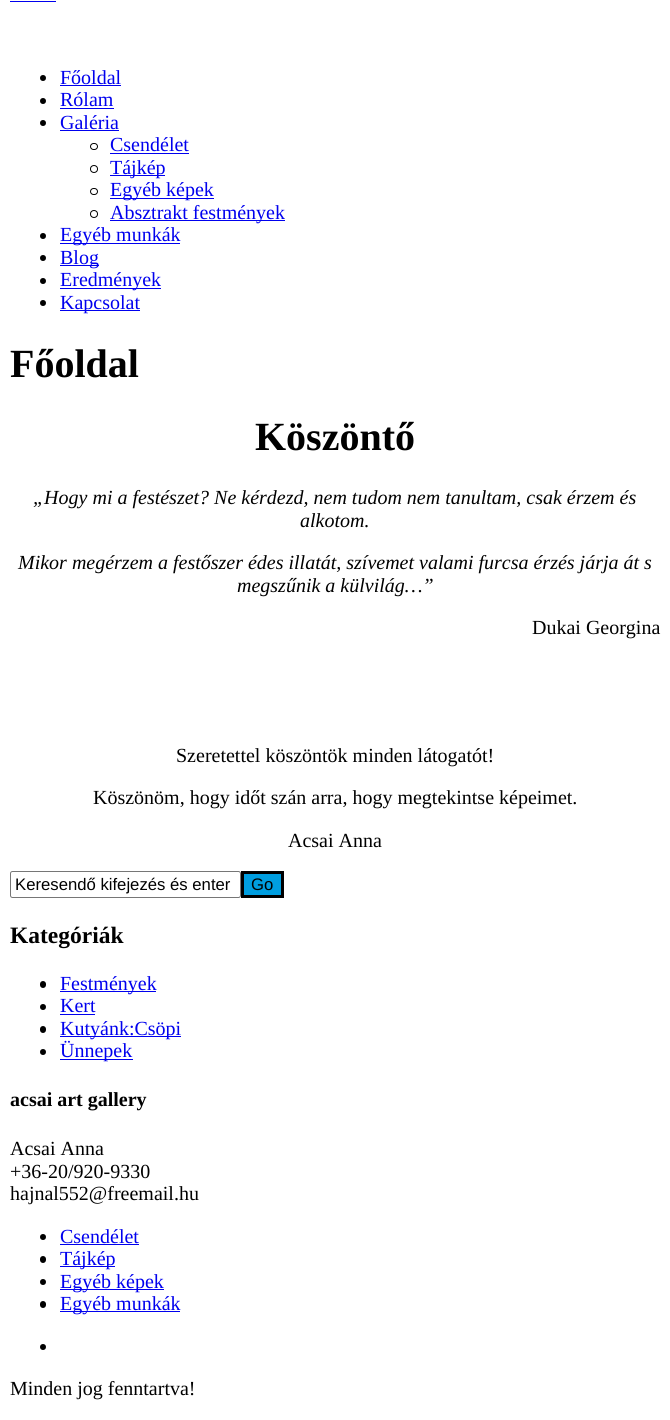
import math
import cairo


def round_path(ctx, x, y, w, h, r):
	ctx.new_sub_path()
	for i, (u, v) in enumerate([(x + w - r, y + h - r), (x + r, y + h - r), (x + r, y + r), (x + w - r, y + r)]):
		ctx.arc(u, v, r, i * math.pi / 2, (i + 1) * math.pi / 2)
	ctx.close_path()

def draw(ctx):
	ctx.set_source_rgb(1, 1, 1)
	ctx.paint()
	ctx.set_source_rgb(0, 0, 0.933)
	ctx.rectangle(10, 1, 46, 1)
	ctx.fill()
	ctx.set_source_rgb(0, 0, 0)
	ctx.arc(43, 78, 3, 0, 2 * math.pi)
	ctx.fill()
	ctx.select_font_face('Liberation Serif')
	ctx.set_font_size(20)
	ctx.set_source_rgb(0, 0, 0.933)
	ctx.move_to(60, 84)
	ctx.show_text('Főoldal')
	ctx.rectangle(60, 85, 61, 1)
	ctx.fill()
	ctx.set_source_rgb(0, 0, 0)
	ctx.arc(43, 101, 3, 0, 2 * math.pi)
	ctx.fill()
	ctx.set_source_rgb(0, 0, 0.933)
	ctx.move_to(60, 106)
	ctx.show_text('Rólam')
	ctx.rectangle(60, 108, 54, 1)
	ctx.fill()
	ctx.set_source_rgb(0, 0, 0)
	ctx.arc(43, 123, 3, 0, 2 * math.pi)
	ctx.fill()
	ctx.set_source_rgb(0, 0, 0.933)
	ctx.move_to(60, 129)
	ctx.show_text('Galéria')
	ctx.rectangle(60, 130, 59, 1)
	ctx.fill()
	round_path(ctx, 90.5, 143.5, 7, 6, 3)
	ctx.set_source_rgb(0, 0, 0)
	ctx.set_line_width(1)
	ctx.stroke()
	ctx.set_source_rgb(0, 0, 0.933)
	ctx.move_to(110, 151)
	ctx.show_text('Csendélet')
	ctx.rectangle(110, 153, 79, 1)
	ctx.fill()
	ctx.arc(94, 169, 3.5, 0, 2 * math.pi)
	ctx.set_source_rgb(0, 0, 0)
	ctx.stroke()
	ctx.set_source_rgb(0, 0, 0.933)
	ctx.rectangle(110, 175, 55, 1)
	ctx.fill()
	ctx.move_to(110, 174)
	ctx.show_text('Tájkép')
	round_path(ctx, 90.5, 188.5, 7, 6, 3)
	ctx.set_source_rgb(0, 0, 0)
	ctx.stroke()
	ctx.set_source_rgb(0, 0, 0.933)
	ctx.rectangle(110, 198, 104, 1)
	ctx.fill()
	ctx.move_to(110, 196)
	ctx.show_text('Egyéb képek')
	ctx.new_path()
	ctx.arc(94, 214, 3.5, 0, 2 * math.pi)
	ctx.set_source_rgb(0, 0, 0)
	ctx.stroke()
	ctx.set_source_rgb(0, 0, 0.933)
	ctx.rectangle(110, 220, 175, 1)
	ctx.fill()
	ctx.move_to(110, 219)
	ctx.show_text('Absztrakt festmények')
	ctx.set_source_rgb(0, 0, 0)
	ctx.new_path()
	ctx.arc(43, 236, 3, 0, 2 * math.pi)
	ctx.fill()
	ctx.set_source_rgb(0, 0, 0.933)
	ctx.rectangle(60, 243, 120, 1)
	ctx.fill()
	ctx.move_to(60, 241)
	ctx.show_text('Egyéb munkák')
	ctx.set_source_rgb(0, 0, 0)
	ctx.new_path()
	ctx.arc(43, 258, 3, 0, 2 * math.pi)
	ctx.fill()
	ctx.set_source_rgb(0, 0, 0.933)
	ctx.rectangle(60, 265, 39, 1)
	ctx.fill()
	ctx.move_to(60, 264)
	ctx.show_text('Blog')
	ctx.set_source_rgb(0, 0, 0)
	ctx.new_path()
	ctx.arc(43, 281, 3, 0, 2 * math.pi)
	ctx.fill()
	ctx.set_source_rgb(0, 0, 0.933)
	ctx.rectangle(60, 288, 101, 1)
	ctx.fill()
	ctx.move_to(60, 286)
	ctx.show_text('Eredmények')
	ctx.set_source_rgb(0, 0, 0)
	ctx.new_path()
	ctx.arc(43, 303, 3, 0, 2 * math.pi)
	ctx.fill()
	ctx.set_source_rgb(0, 0, 0.933)
	ctx.rectangle(60, 310, 80, 1)
	ctx.fill()
	ctx.move_to(60, 309)
	ctx.show_text('Kapcsolat')
	ctx.select_font_face('Liberation Serif', cairo.FONT_SLANT_NORMAL, cairo.FONT_WEIGHT_BOLD)
	ctx.set_font_size(40)
	ctx.set_source_rgb(0, 0, 0)
	ctx.move_to(10, 377)
	ctx.show_text('Főoldal')
	ctx.move_to(255, 450)
	ctx.show_text('Köszöntő')
	ctx.select_font_face('Liberation Serif', cairo.FONT_SLANT_ITALIC)
	ctx.set_font_size(20)
	for x, y, s in [
		(33, 504, '„Hogy mi a festészet? Ne kérdezd, nem tudom nem tanultam, csak érzem és'),
		(300, 527, 'alkotom.'),
		(18, 569, 'Mikor megérzem a festőszer édes illatát, szívemet valami furcsa érzés járja át s'),
		(237, 592, 'megszűnik a külvilág…”'),
	]:
		ctx.move_to(x, y)
		ctx.show_text(s)
	ctx.select_font_face('Liberation Serif')
	for x, y, s in [
		(532, 634, 'Dukai Georgina'),
		(176, 762, 'Szeretettel köszöntök minden látogatót!'),
		(93, 804, 'Köszönöm, hogy időt szán arra, hogy megtekintse képeimet.'),
		(288, 847, 'Acsai Anna'),
	]:
		ctx.move_to(x, y)
		ctx.show_text(s)
	round_path(ctx, 10.5, 871.5, 230, 26, 2)
	ctx.set_source_rgb(0.463, 0.463, 0.463)
	ctx.stroke()
	ctx.select_font_face('Liberation Sans')
	ctx.set_font_size(16.7)
	ctx.set_source_rgb(0, 0, 0)
	ctx.move_to(15, 890)
	ctx.show_text('Keresendő kifejezés és enter')
	ctx.set_source_rgb(0, 0.62, 0.878)
	ctx.rectangle(242.5, 872.5, 40, 24)
	ctx.fill_preserve()
	ctx.set_source_rgb(0, 0, 0)
	ctx.set_line_width(3)
	ctx.stroke()
	ctx.move_to(251, 890)
	ctx.show_text('Go')
	ctx.select_font_face('Liberation Serif', cairo.FONT_SLANT_NORMAL, cairo.FONT_WEIGHT_BOLD)
	ctx.set_font_size(23.5)
	ctx.move_to(10, 943)
	ctx.show_text('Kategóriák')
	round_path(ctx, 40, 981, 6, 7, 3)
	ctx.fill()
	ctx.set_source_rgb(0, 0, 0.933)
	ctx.rectangle(60, 991, 96, 1)
	ctx.fill()
	ctx.select_font_face('Liberation Serif')
	ctx.set_font_size(20)
	ctx.move_to(60, 990)
	ctx.show_text('Festmények')
	ctx.set_source_rgb(0, 0, 0)
	ctx.new_path()
	ctx.arc(43, 1007, 3, 0, 2 * math.pi)
	ctx.fill()
	ctx.set_source_rgb(0, 0, 0.933)
	ctx.move_to(60, 1012)
	ctx.show_text('Kert')
	ctx.rectangle(60, 1014, 35, 1)
	ctx.fill()
	ctx.set_source_rgb(0, 0, 0)
	round_path(ctx, 40, 1026, 6, 7, 3)
	ctx.fill()
	ctx.set_source_rgb(0, 0, 0.933)
	ctx.rectangle(60, 1036, 121, 1)
	ctx.fill()
	ctx.move_to(60, 1035)
	ctx.show_text('Kutyánk:Csöpi')
	ctx.set_source_rgb(0, 0, 0)
	ctx.new_path()
	ctx.arc(43, 1052, 3, 0, 2 * math.pi)
	ctx.fill()
	ctx.set_source_rgb(0, 0, 0.933)
	ctx.rectangle(60, 1059, 73, 1)
	ctx.fill()
	ctx.move_to(60, 1057)
	ctx.show_text('Ünnepek')
	ctx.select_font_face('Liberation Serif', cairo.FONT_SLANT_NORMAL, cairo.FONT_WEIGHT_BOLD)
	ctx.set_source_rgb(0, 0, 0)
	ctx.move_to(10, 1106)
	ctx.show_text('acsai art gallery')
	ctx.select_font_face('Liberation Serif')
	for x, y, s in [
		(10, 1155, 'Acsai Anna'),
		(10, 1178, '+36-20/920-9330'),
		(10, 1200, 'hajnal552@freemail.hu'),
	]:
		ctx.move_to(x, y)
		ctx.show_text(s)
	ctx.new_path()
	ctx.arc(43, 1237, 3, 0, 2 * math.pi)
	ctx.fill()
	ctx.set_source_rgb(0, 0, 0.933)
	ctx.move_to(60, 1243)
	ctx.show_text('Csendélet')
	ctx.rectangle(60, 1244, 79, 1)
	ctx.fill()
	ctx.set_source_rgb(0, 0, 0)
	round_path(ctx, 40, 1256, 6, 7, 3)
	ctx.fill()
	ctx.set_source_rgb(0, 0, 0.933)
	ctx.rectangle(60, 1266, 55, 1)
	ctx.fill()
	ctx.move_to(60, 1265)
	ctx.show_text('Tájkép')
	ctx.set_source_rgb(0, 0, 0)
	ctx.new_path()
	ctx.arc(43, 1282, 3, 0, 2 * math.pi)
	ctx.fill()
	ctx.set_source_rgb(0, 0, 0.933)
	ctx.rectangle(60, 1289, 104, 1)
	ctx.fill()
	ctx.move_to(60, 1288)
	ctx.show_text('Egyéb képek')
	ctx.set_source_rgb(0, 0, 0)
	round_path(ctx, 40, 1301, 6, 7, 3)
	ctx.fill()
	ctx.set_source_rgb(0, 0, 0.933)
	ctx.rectangle(60, 1311, 120, 1)
	ctx.fill()
	ctx.move_to(60, 1310)
	ctx.show_text('Egyéb munkák')
	ctx.set_source_rgb(0, 0, 0)
	ctx.new_path()
	ctx.arc(43, 1347, 3, 0, 2 * math.pi)
	ctx.fill()
	ctx.move_to(10, 1395)
	ctx.show_text('Minden jog fenntartva!')


surface = cairo.ImageSurface(cairo.FORMAT_RGB24, 670, 1420)
ctx = cairo.Context(surface)
options = cairo.FontOptions()
options.set_hint_metrics(cairo.HINT_METRICS_OFF)
options.set_hint_style(cairo.HINT_STYLE_NONE)
ctx.set_font_options(options)
ctx.set_miter_limit(4)
draw(ctx)
surface.write_to_png('image.png')
